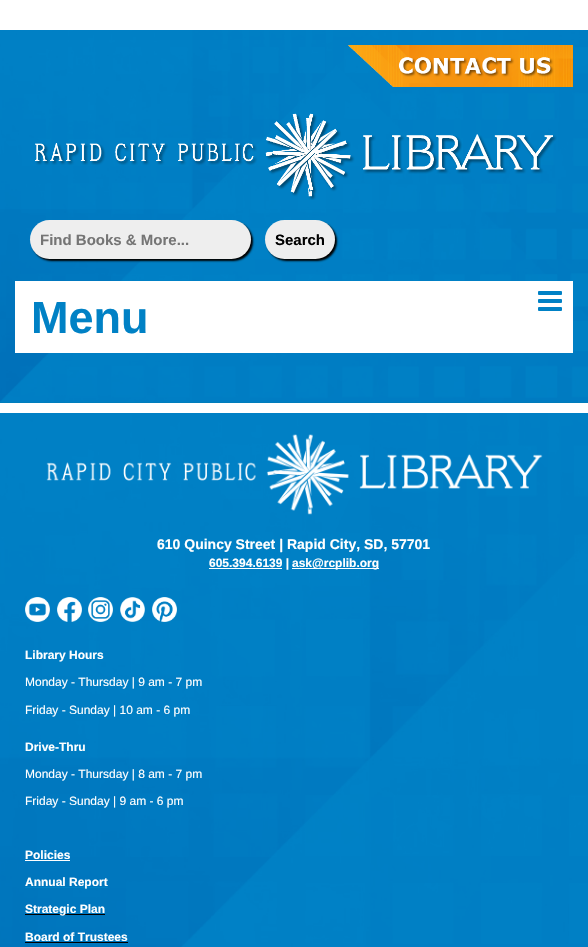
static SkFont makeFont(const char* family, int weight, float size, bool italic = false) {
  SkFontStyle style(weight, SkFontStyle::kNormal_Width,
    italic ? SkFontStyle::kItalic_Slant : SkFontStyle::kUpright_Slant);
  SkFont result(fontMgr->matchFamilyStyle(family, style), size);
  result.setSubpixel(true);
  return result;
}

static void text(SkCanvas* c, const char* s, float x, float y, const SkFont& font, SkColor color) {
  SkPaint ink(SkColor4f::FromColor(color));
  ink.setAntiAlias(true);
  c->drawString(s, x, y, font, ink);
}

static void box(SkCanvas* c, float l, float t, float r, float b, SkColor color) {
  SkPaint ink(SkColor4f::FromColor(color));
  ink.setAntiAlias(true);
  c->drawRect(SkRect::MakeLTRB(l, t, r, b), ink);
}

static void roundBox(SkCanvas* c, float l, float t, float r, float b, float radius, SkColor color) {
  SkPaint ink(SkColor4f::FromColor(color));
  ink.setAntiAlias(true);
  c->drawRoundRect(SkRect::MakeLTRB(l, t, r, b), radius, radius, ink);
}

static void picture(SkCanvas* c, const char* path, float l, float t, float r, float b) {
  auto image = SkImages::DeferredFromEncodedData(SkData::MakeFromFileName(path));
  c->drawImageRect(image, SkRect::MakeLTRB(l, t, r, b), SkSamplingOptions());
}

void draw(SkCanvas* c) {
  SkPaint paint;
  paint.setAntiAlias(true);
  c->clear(0xffffffff);
  picture(c, "img_01.png", 0, 30, 588, 403);
  picture(c, "img_02.png", 348, 45, 573, 87);
  picture(c, "img_03.png", 35, 113, 557, 200);
  paint.setColor(0xff000000);
  paint.setMaskFilter(SkMaskFilter::MakeBlur(kNormal_SkBlurStyle, 1));
  c->drawRoundRect(SkRect::MakeLTRB(32, 222, 253, 261), 19.5f, 19.5f, paint);
  paint.setMaskFilter(nullptr);
  roundBox(c, 30, 220, 251, 259, 19.5f, 0xffeeeeee);
  SkFont face1 = makeFont("Liberation Sans", 700, 15);
  text(c, "Find Books & More...", 40, 245, face1, 0xff757575);
  paint.setMaskFilter(SkMaskFilter::MakeBlur(kNormal_SkBlurStyle, 1));
  c->drawRoundRect(SkRect::MakeLTRB(267, 222, 337, 261), 19.5f, 19.5f, paint);
  paint.setMaskFilter(nullptr);
  roundBox(c, 265, 220, 335, 259, 19.5f, 0xffeeeeee);
  text(c, "Search", 275, 245, face1, 0xff000000);
  box(c, 15, 281, 573, 353, 0xffffffff);
  SkFont face2 = makeFont("Liberation Sans", 700, 45);
  text(c, "Menu", 31, 333, face2, 0xff0081c5);
  picture(c, "img_04.png", 538, 291, 562, 311);
  picture(c, "img_05.png", 0, 413, 588, 947);
  picture(c, "img_06.png", 46, 434, 543, 515);
  SkFont face3 = makeFont("Liberation Sans", 700, 14);
  text(c, "610 Quincy Street | Rapid City, SD, 57701", 157, 549, face3, 0xffffffff);
  box(c, 209, 568, 282, 569, 0xffffffff);
  SkFont face4 = makeFont("Liberation Sans", 700, 12);
  text(c, "605.394.6139 |", 209, 567, face4, 0xffffffff);
  box(c, 292, 568, 379, 569, 0xffffffff);
  text(c, "ask@rcplib.org", 292, 567, face4, 0xffffffff);
  picture(c, "img_07.png", 25, 597, 50, 622);
  picture(c, "img_08.png", 57, 597, 82, 622);
  picture(c, "img_09.png", 88, 597, 113, 622);
  picture(c, "img_10.png", 120, 597, 145, 622);
  picture(c, "img_11.png", 152, 597, 177, 622);
  text(c, "Library Hours", 25, 659, face4, 0xffffffff);
  SkFont face5 = makeFont("Liberation Sans", 400, 12);
  text(c, "Monday - Thursday | 9 am - 7 pm", 25, 686, face5, 0xffffffff);
  text(c, "Friday - Sunday | 10 am - 6 pm", 25, 714, face5, 0xffffffff);
  text(c, "Drive-Thru", 25, 751, face4, 0xffffffff);
  text(c, "Monday - Thursday | 8 am - 7 pm", 25, 778, face5, 0xffffffff);
  text(c, "Friday - Sunday | 9 am - 6 pm", 25, 805, face5, 0xffffffff);
  text(c, "Policies", 25, 859, face4, 0xffffffff);
  box(c, 25, 860, 70, 861, 0xffffffff);
  box(c, 25, 887, 108, 888, 0xff0081c5);
  text(c, "Annual Report", 25, 886, face4, 0xffffffff);
  box(c, 25, 914, 105, 915, 0xff000000);
  text(c, "Strategic Plan", 25, 913, face4, 0xffffffff);
  text(c, "Board of Trustees", 25, 941, face4, 0xffffffff);
  box(c, 25, 942, 128, 943, 0xff000000);
}
